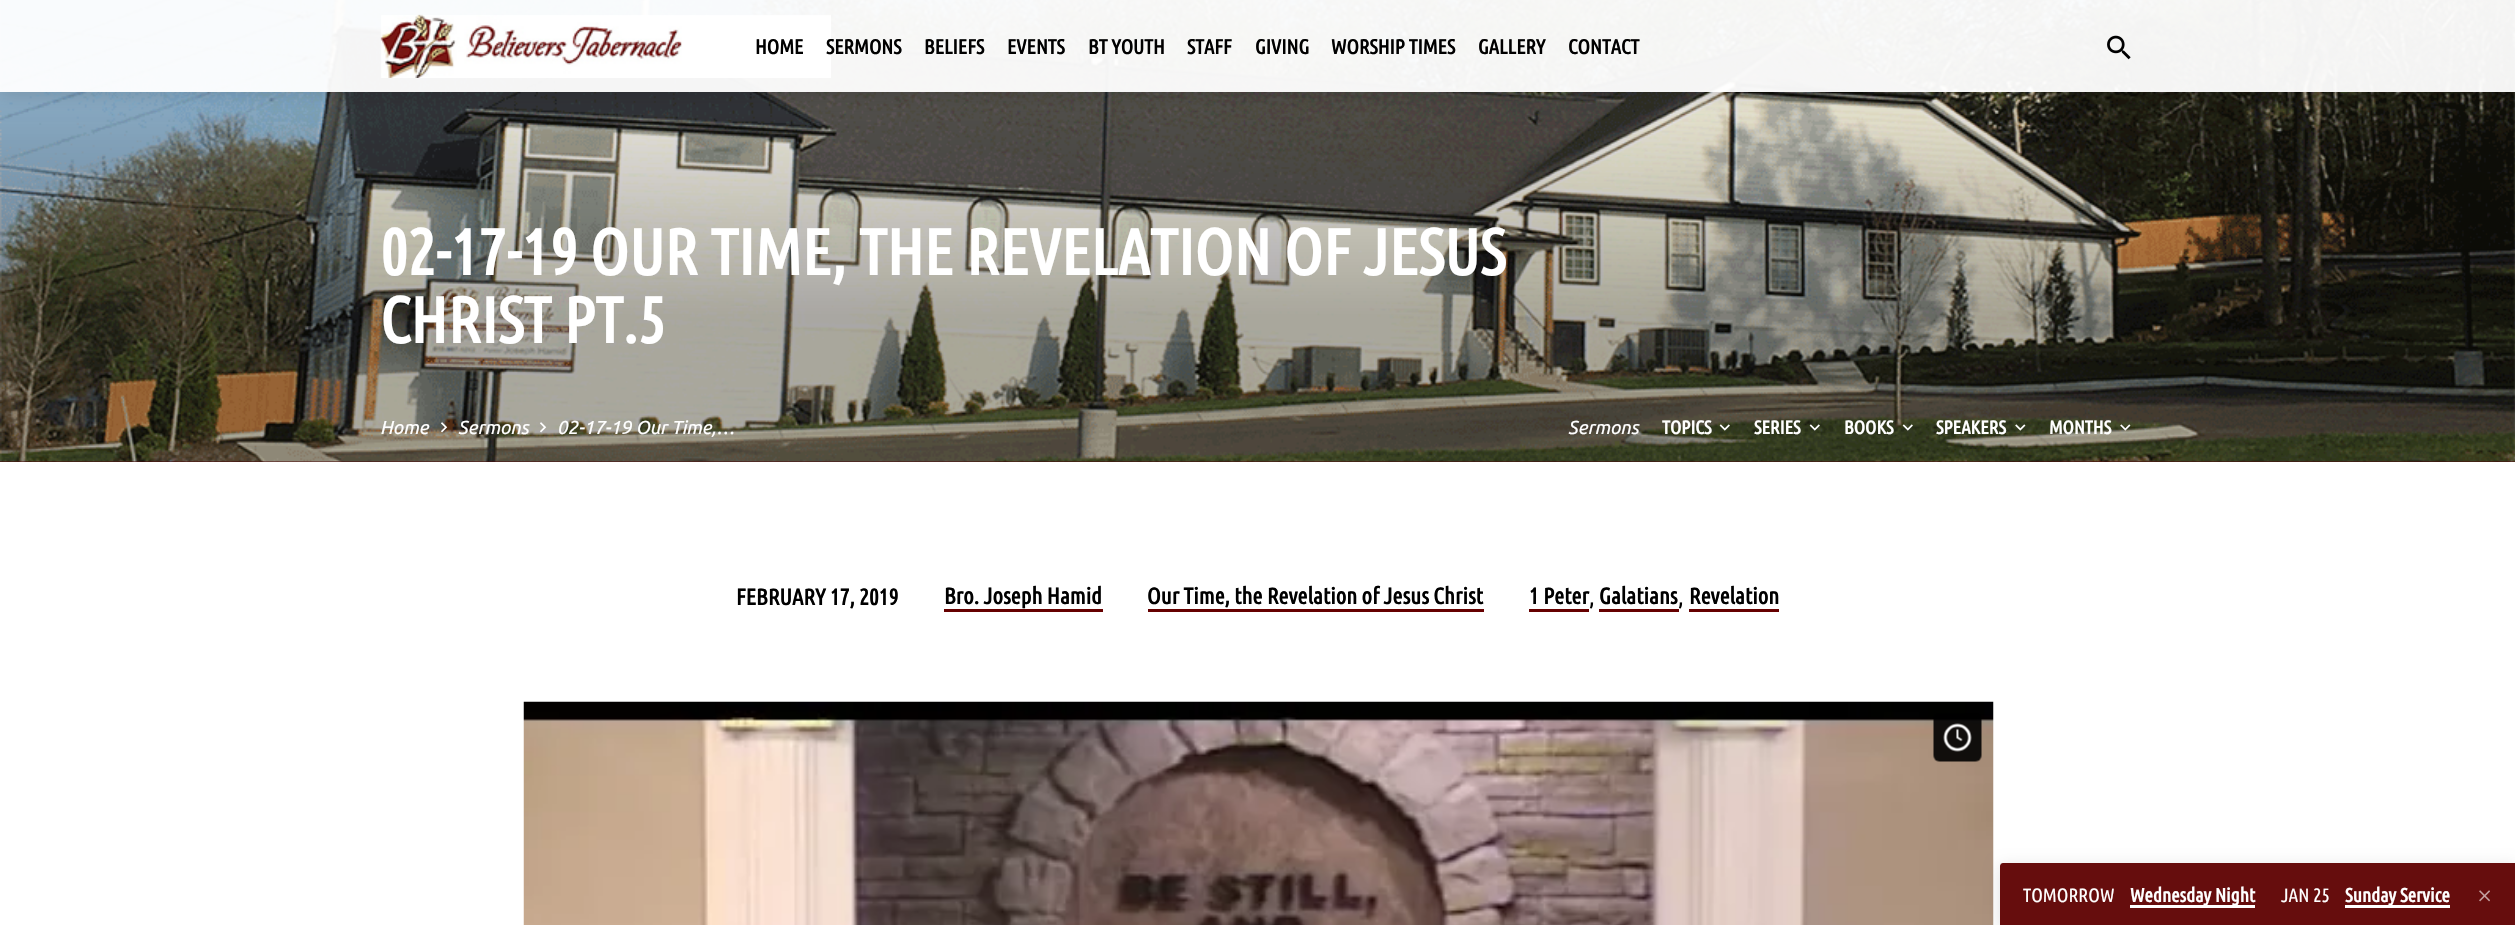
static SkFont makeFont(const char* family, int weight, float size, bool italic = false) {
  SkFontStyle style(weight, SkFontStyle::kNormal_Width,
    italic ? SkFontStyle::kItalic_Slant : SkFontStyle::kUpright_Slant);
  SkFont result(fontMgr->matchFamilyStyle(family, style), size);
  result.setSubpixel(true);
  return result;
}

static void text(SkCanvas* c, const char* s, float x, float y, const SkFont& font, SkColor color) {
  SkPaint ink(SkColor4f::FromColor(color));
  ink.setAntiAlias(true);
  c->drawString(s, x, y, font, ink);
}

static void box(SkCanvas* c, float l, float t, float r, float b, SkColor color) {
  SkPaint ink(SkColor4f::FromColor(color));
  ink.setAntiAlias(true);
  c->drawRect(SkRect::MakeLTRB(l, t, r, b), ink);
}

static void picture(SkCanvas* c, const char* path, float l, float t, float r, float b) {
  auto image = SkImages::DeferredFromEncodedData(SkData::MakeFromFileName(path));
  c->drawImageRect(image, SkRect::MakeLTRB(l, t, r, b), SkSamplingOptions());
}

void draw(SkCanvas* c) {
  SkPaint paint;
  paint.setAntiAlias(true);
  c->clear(0xffffffff);
  box(c, 0, 0, 2515, 462, 0xff690c0c);
  picture(c, "img_03.png", 0, 0, 2515, 462);
  {
    const SkColor colors[] = {0x00000000, 0x00000000, 0x4a000000, 0x4a000000};
    const float stops[] = {0, 0.36f, 0.76f, 1};
    const SkPoint ends[] = {{1258, -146}, {1258, 462}};
    paint.setShader(SkGradientShader::MakeLinear(ends, colors, stops, 4, SkTileMode::kClamp));
    paint.setAlpha(255);
  }
  c->drawRect(SkRect::MakeLTRB(0, 91, 2515, 462), paint);
  box(c, 0, 0, 2515, 92, 0xf2ffffff);
  c->save();
  c->clipPath(SkPathBuilder(SkPathFillType::kEvenOdd).moveTo(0, 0).lineTo(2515, 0).lineTo(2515, 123).lineTo(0, 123).close().moveTo(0, 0).lineTo(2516, 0).lineTo(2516, 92).lineTo(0, 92).close().detach(), true);
  paint.setShader(nullptr);
  paint.setColor(0x24000000);
  paint.setMaskFilter(SkMaskFilter::MakeBlur(kNormal_SkBlurStyle, 9));
  c->drawRect(SkRect::MakeLTRB(0, 3, 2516, 95), paint);
  paint.setMaskFilter(nullptr);
  c->restore();
  picture(c, "img_01.png", 380, 14, 831, 78);
  SkFont face1 = makeFont("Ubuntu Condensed", 700, 20.5f);
  text(c, "HOME", 755, 54, face1, 0xff000000);
  text(c, "SERMONS", 826, 54, face1, 0xff000000);
  text(c, "BELIEFS", 924, 54, face1, 0xff000000);
  text(c, "EVENTS", 1007, 54, face1, 0xff000000);
  text(c, "BT YOUTH", 1088, 54, face1, 0xff000000);
  text(c, "STAFF", 1187, 54, face1, 0xff000000);
  text(c, "GIVING", 1255, 54, face1, 0xff000000);
  text(c, "WORSHIP TIMES", 1331, 54, face1, 0xff000000);
  text(c, "GALLERY", 1478, 54, face1, 0xff000000);
  text(c, "CONTACT", 1568, 54, face1, 0xff000000);
  picture(c, "img_02.png", 2107, 35, 2131, 60);
  SkFont face2 = makeFont("Ubuntu Condensed", 700, 64.75f);
  text(c, "02-17-19 OUR TIME, THE REVELATION OF JESUS", 380, 275, face2, 0xffffffff);
  text(c, "CHRIST PT.5", 380, 343, face2, 0xffffffff);
  SkFont face3 = makeFont("Ubuntu", 400, 18.75f, true);
  text(c, "Home", 380, 434, face3, 0xffffffff);
  picture(c, "img_04.png", 441, 422, 448, 433);
  text(c, "Sermons", 458, 434, face3, 0xffffffff);
  picture(c, "img_05.png", 540, 422, 547, 433);
  text(c, "02-17-19 Our Time,…", 557, 434, face3, 0xffffffff);
  text(c, "Sermons", 1568, 434, face3, 0xffffffff);
  SkFont face4 = makeFont("Ubuntu Condensed", 700, 18.75f);
  text(c, "TOPICS", 1662, 434, face4, 0xffffffff);
  picture(c, "img_06.png", 1719, 424, 1730, 431);
  text(c, "SERIES", 1754, 434, face4, 0xffffffff);
  picture(c, "img_07.png", 1809, 424, 1820, 431);
  text(c, "BOOKS", 1844, 434, face4, 0xffffffff);
  picture(c, "img_08.png", 1902, 424, 1913, 431);
  text(c, "SPEAKERS", 1936, 434, face4, 0xffffffff);
  picture(c, "img_09.png", 2015, 424, 2026, 431);
  text(c, "MONTHS", 2049, 434, face4, 0xffffffff);
  picture(c, "img_10.png", 2120, 424, 2131, 431);
  SkFont face5 = makeFont("Ubuntu Condensed", 700, 22.75f);
  text(c, "FEBRUARY 17, 2019", 736, 605, face5, 0xff000000);
  text(c, "Bro. Joseph Hamid", 944, 604, face5, 0xff000000);
  box(c, 944, 609, 1103, 612, 0xff660000);
  text(c, "Our Time, the Revelation of Jesus Christ", 1147, 604, face5, 0xff000000);
  box(c, 1148, 609, 1484, 612, 0xff660000);
  text(c, "1 Peter", 1529, 604, face5, 0xff000000);
  box(c, 1529, 609, 1589, 612, 0xff660000);
  SkFont face6 = makeFont("Ubuntu", 400, 22.75f);
  text(c, ",", 1589, 605, face6, 0xff000000);
  text(c, "Galatians", 1599, 604, face5, 0xff000000);
  box(c, 1599, 609, 1679, 612, 0xff660000);
  text(c, ",", 1678, 605, face6, 0xff000000);
  text(c, "Revelation", 1689, 604, face5, 0xff000000);
  box(c, 1689, 609, 1779, 612, 0xff660000);
  picture(c, "img_11.png", 523, 701, 1994, 925);
  paint.setColor(0x1f000000);
  paint.setMaskFilter(SkMaskFilter::MakeBlur(kNormal_SkBlurStyle, 7.5f));
  c->drawRoundRect(SkRect::MakeLTRB(2000, 866, 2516, 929), 3, 3, paint);
  paint.setMaskFilter(nullptr);
  paint.setColor(0xff6e0d0d);
  c->drawPath(SkPathBuilder().moveTo(2003, 863).lineTo(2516, 863).lineTo(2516, 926).lineTo(2000, 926).lineTo(2000, 866).cubicTo(2000, 864.5f, 2001.5f, 863, 2003, 863).close().detach(), paint);
  box(c, 2000, 863, 2515, 925, 0x12000000);
  SkFont face7 = makeFont("Ubuntu Condensed", 400, 19.25f);
  text(c, "TOMORROW", 2023, 902, face7, 0xffffffff);
  box(c, 2130, 905, 2255, 908, 0xffffffff);
  SkFont face8 = makeFont("Ubuntu Condensed", 700, 19.25f);
  text(c, "Wednesday Night", 2130, 902, face8, 0xffffffff);
  text(c, "JAN 25", 2281, 902, face7, 0xffffffff);
  box(c, 2345, 905, 2450, 908, 0xffffffff);
  text(c, "Sunday Service", 2345, 902, face8, 0xffffffff);
  picture(c, "img_12.png", 2479, 890, 2490, 902);
}
